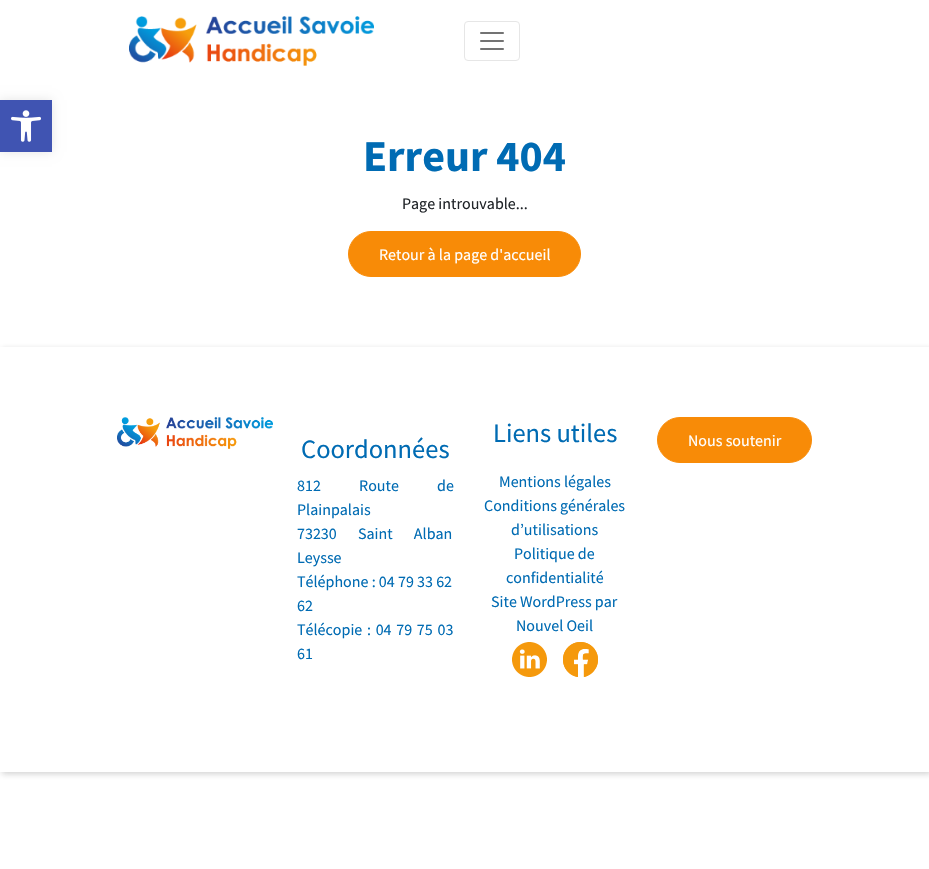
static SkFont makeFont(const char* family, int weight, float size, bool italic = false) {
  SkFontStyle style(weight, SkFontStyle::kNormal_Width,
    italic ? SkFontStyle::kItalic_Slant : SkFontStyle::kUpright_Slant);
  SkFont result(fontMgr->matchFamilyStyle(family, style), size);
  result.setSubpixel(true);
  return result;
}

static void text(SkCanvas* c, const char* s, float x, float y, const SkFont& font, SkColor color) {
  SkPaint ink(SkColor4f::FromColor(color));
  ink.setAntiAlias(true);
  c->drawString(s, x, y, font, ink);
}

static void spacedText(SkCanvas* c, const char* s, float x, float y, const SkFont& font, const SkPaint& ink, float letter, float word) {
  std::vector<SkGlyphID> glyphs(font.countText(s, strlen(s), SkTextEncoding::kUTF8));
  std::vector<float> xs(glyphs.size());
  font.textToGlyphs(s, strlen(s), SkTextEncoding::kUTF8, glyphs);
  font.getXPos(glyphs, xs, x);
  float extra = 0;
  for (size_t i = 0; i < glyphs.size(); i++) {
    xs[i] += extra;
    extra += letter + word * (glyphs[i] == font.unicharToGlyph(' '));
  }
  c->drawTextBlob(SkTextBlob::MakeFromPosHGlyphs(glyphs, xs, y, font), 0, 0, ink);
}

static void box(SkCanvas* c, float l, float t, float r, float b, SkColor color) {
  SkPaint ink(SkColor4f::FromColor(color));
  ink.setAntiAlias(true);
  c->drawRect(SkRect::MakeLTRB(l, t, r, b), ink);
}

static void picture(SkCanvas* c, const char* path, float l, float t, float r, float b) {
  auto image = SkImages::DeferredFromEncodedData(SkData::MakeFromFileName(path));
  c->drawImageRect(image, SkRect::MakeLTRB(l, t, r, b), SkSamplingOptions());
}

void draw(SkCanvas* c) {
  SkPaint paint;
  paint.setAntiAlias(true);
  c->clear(0xffffffff);
  picture(c, "img_01.png", 129, 16, 374, 66);
  paint.setStyle(SkPaint::kStroke_Style);
  paint.setStrokeWidth(1);
  paint.setColor(0xffe6e6e6);
  c->drawRoundRect(SkRect::MakeLTRB(464.5f, 21.5f, 519.5f, 60.5f), 3.5f, 3.5f, paint);
  picture(c, "img_02.png", 480, 32, 504, 50);
  paint.setStyle(SkPaint::kFill_Style);
  paint.setColor(0x1a000000);
  paint.setMaskFilter(SkMaskFilter::MakeBlur(kNormal_SkBlurStyle, 5));
  c->drawRect(SkRect::MakeLTRB(0, 100, 52, 152), paint);
  paint.setMaskFilter(nullptr);
  box(c, 0, 100, 52, 152, 0xff4054b2);
  picture(c, "img_03.png", 11, 110, 41, 142);
  SkFont face1 = makeFont("Source Sans Pro", 700, 44);
  text(c, "Erreur 404", 363, 171, face1, 0xff006bb3);
  SkFont face2 = makeFont("Source Sans Pro", 400, 16);
  text(c, "Page introuvable...", 402, 209, face2, 0xff212529);
  paint.setColor(0xfff88b07);
  c->drawRoundRect(SkRect::MakeLTRB(348.5f, 231.5f, 580.5f, 276.5f), 22.5f, 22.5f, paint);
  paint.setStyle(SkPaint::kStroke_Style);
  c->drawRoundRect(SkRect::MakeLTRB(348.5f, 231.5f, 580.5f, 276.5f), 22.5f, 22.5f, paint);
  text(c, "Retour à la page d'accueil", 379, 260, face2, 0xffffffff);
  c->save();
  c->clipPath(SkPathBuilder(SkPathFillType::kEvenOdd).moveTo(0, 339).lineTo(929, 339).lineTo(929, 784).lineTo(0, 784).close().moveTo(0, 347).lineTo(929, 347).lineTo(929, 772).lineTo(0, 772).close().detach(), true);
  paint.setStyle(SkPaint::kFill_Style);
  paint.setColor(0x331a1a1a);
  paint.setMaskFilter(SkMaskFilter::MakeBlur(kNormal_SkBlurStyle, 3));
  c->drawRect(SkRect::MakeLTRB(2, 349, 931, 774), paint);
  paint.setMaskFilter(nullptr);
  c->restore();
  picture(c, "img_04.png", 117, 417, 273, 449);
  SkFont face3 = makeFont("Source Sans Pro", 400, 26.5f);
  text(c, "Coordonnées", 301, 458, face3, 0xff006bb3);
  paint.setColor(0xff006bb3);
  spacedText(c, "812 Route de", 297, 491, face2, paint, 0, 35);
  text(c, "Plainpalais", 297, 515, face2, 0xff006bb3);
  spacedText(c, "73230 Saint Alban", 297, 539, face2, paint, 0, 18);
  text(c, "Leysse", 297, 563, face2, 0xff006bb3);
  text(c, "Téléphone : 04 79 33 62", 297, 587, face2, 0xff006bb3);
  text(c, "62", 297, 611, face2, 0xff006bb3);
  spacedText(c, "Télécopie : 04 79 75 03", 297, 635, face2, paint, 0, 1.5f);
  text(c, "61", 297, 659, face2, 0xff006bb3);
  text(c, "Liens utiles", 493, 442, face3, 0xff006bb3);
  text(c, "Mentions légales", 499, 487, face2, 0xff006bb3);
  text(c, "Conditions générales", 484, 511, face2, 0xff006bb3);
  text(c, "d’utilisations", 511, 535, face2, 0xff006bb3);
  text(c, "Politique de", 514, 559, face2, 0xff006bb3);
  text(c, "confidentialité", 506, 583, face2, 0xff006bb3);
  text(c, "Site WordPress par", 491, 607, face2, 0xff006bb3);
  text(c, "Nouvel Oeil", 516, 631, face2, 0xff006bb3);
  picture(c, "img_05.png", 512, 642, 547, 677);
  picture(c, "img_06.png", 563, 642, 598, 677);
  paint.setColor(0xfff88b07);
  c->drawRoundRect(SkRect::MakeLTRB(657.5f, 417.5f, 811.5f, 462.5f), 22.5f, 22.5f, paint);
  paint.setStyle(SkPaint::kStroke_Style);
  c->drawRoundRect(SkRect::MakeLTRB(657.5f, 417.5f, 811.5f, 462.5f), 22.5f, 22.5f, paint);
  text(c, "Nous soutenir", 688, 446, face2, 0xffffffff);
}
